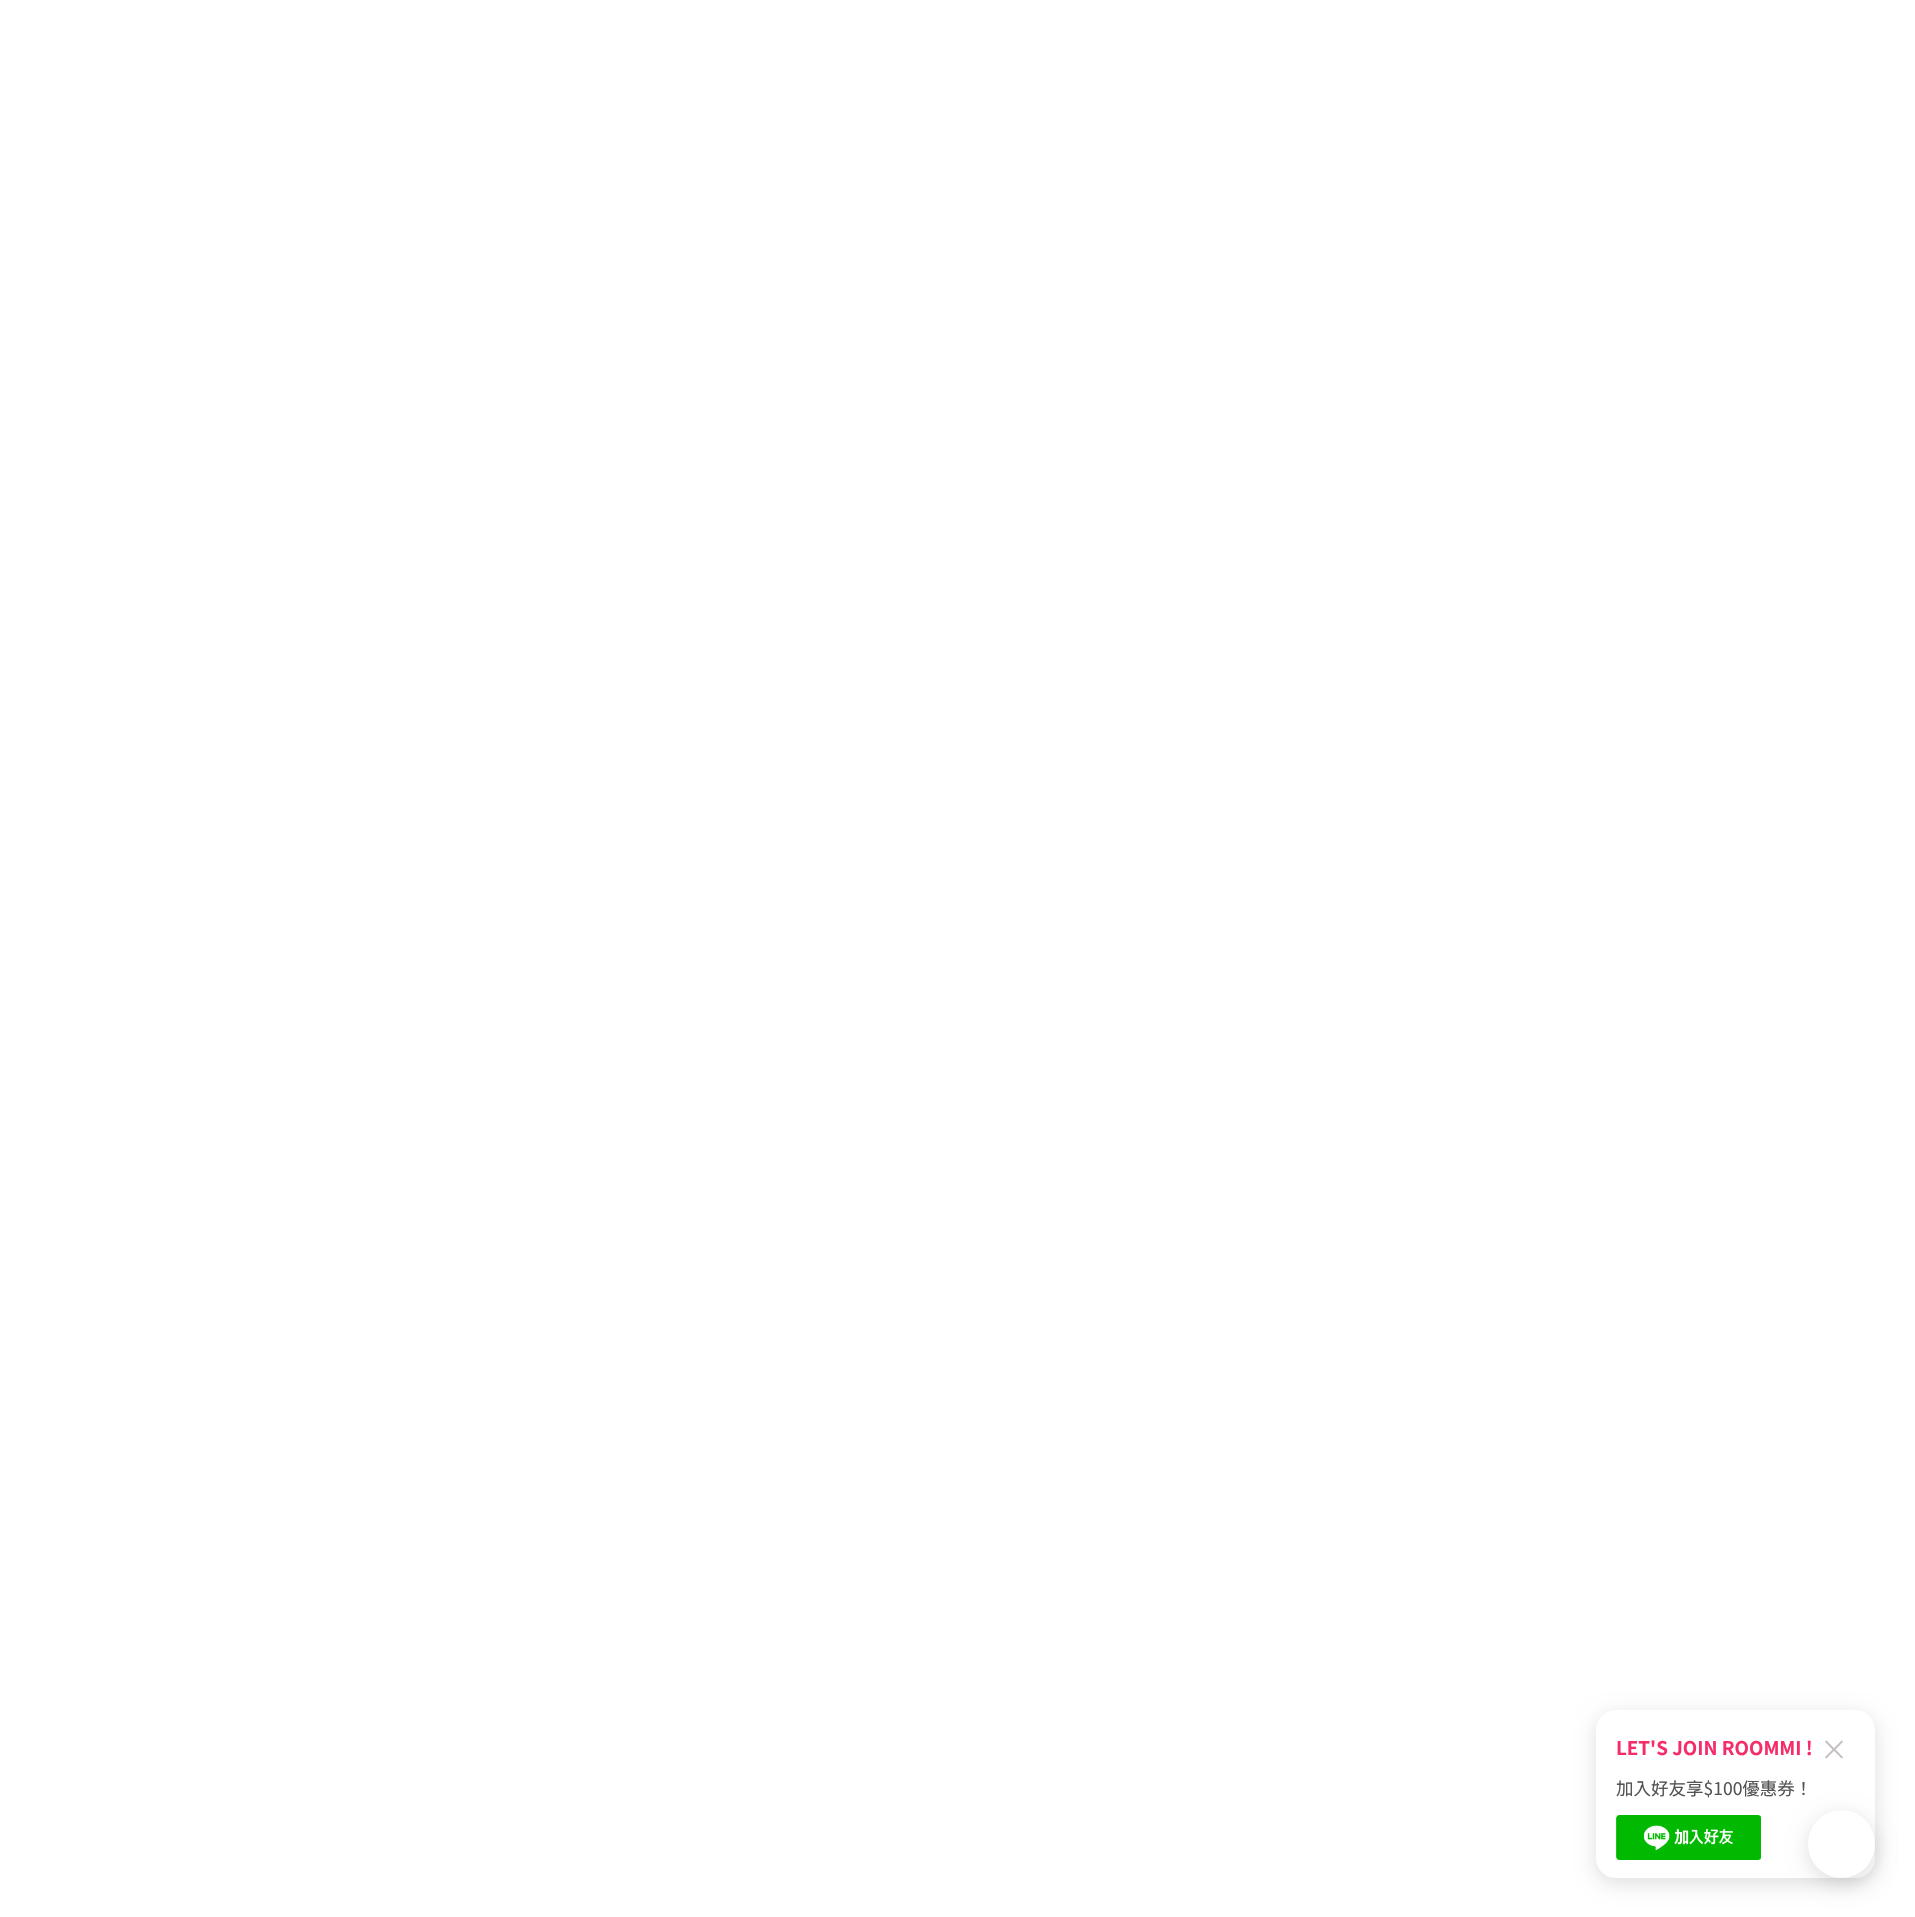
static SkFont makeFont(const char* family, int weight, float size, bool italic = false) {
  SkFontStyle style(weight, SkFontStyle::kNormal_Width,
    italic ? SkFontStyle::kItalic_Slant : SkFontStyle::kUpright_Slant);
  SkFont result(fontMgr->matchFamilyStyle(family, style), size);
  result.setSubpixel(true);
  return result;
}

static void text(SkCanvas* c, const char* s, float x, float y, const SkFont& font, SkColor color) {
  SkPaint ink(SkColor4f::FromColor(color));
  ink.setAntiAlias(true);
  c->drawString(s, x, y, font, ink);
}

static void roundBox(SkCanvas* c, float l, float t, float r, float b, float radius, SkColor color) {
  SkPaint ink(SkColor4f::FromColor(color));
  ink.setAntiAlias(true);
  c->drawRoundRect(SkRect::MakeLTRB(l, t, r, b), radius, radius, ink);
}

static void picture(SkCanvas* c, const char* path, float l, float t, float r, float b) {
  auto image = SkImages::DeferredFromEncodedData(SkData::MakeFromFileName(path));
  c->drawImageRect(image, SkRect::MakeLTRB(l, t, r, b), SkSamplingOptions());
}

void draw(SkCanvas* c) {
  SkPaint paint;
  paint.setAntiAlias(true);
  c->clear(0xffffffff);
  paint.setColor(0x21000000);
  paint.setMaskFilter(SkMaskFilter::MakeBlur(kNormal_SkBlurStyle, 10));
  c->drawRoundRect(SkRect::MakeLTRB(1596, 1715, 1875, 1883), 20, 20, paint);
  paint.setMaskFilter(nullptr);
  roundBox(c, 1596, 1710, 1875, 1878, 20, 0xffffffff);
  SkFont face1 = makeFont("Noto Sans TC", 700, 18.75f);
  text(c, "LET'S JOIN ROOMMI !", 1616, 1755, face1, 0xfff52c6a);
  SkFont face2 = makeFont("Noto Sans TC", 400, 28);
  text(c, "×", 1820, 1760, face2, 0xffc5bebe);
  SkFont face3 = makeFont("Noto Sans TC", 400, 17.5f);
  text(c, "加入好友享$100優惠券！", 1616, 1795, face3, 0xff535353);
  picture(c, "img_01.png", 1616, 1815, 1761, 1860);
  paint.setMaskFilter(SkMaskFilter::MakeBlur(kNormal_SkBlurStyle, 10));
  c->drawRoundRect(SkRect::MakeLTRB(1808, 1815, 1875, 1883), 33.5f, 33.5f, paint);
  paint.setMaskFilter(nullptr);
  roundBox(c, 1808, 1810, 1875, 1878, 33.5f, 0xffffffff);
}
